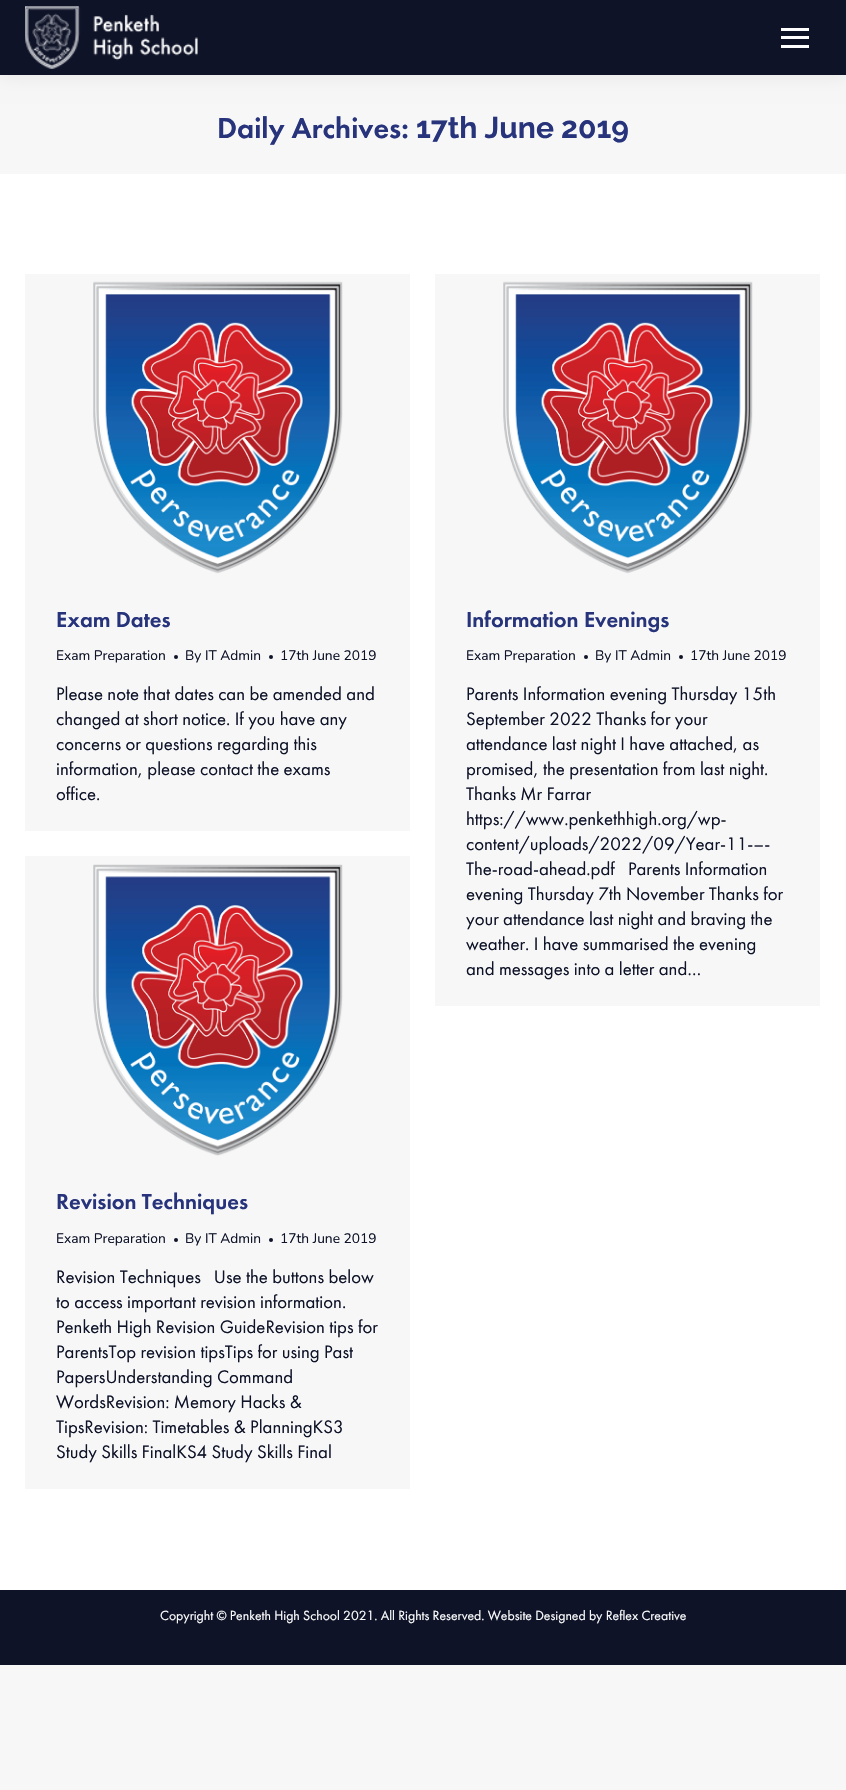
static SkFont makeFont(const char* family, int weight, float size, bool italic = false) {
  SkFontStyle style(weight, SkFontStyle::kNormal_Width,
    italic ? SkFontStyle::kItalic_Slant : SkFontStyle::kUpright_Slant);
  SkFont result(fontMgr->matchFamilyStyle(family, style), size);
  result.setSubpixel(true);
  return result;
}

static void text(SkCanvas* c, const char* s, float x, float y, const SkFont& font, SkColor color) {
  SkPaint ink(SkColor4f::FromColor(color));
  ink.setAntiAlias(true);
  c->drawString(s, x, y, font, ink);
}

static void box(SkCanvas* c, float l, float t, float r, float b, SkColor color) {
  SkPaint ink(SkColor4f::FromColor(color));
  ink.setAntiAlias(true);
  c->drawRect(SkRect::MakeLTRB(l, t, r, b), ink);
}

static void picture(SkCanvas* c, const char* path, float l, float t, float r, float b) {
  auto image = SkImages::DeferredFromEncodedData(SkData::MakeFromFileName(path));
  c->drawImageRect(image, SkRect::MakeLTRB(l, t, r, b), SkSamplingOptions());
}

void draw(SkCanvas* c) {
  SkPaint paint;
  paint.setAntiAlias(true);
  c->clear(0xfff7f7f7);
  box(c, 0, 174, 846, 1590, 0xffffffff);
  paint.setColor(0x12000000);
  paint.setMaskFilter(SkMaskFilter::MakeBlur(kNormal_SkBlurStyle, 9.5f));
  c->drawRect(SkRect::MakeLTRB(-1, -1, 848, 76), paint);
  paint.setMaskFilter(nullptr);
  box(c, 0, 0, 846, 75, 0xff0e1328);
  picture(c, "img_01.png", 25, 6, 198, 69);
  box(c, 781, 28, 809, 31, 0xffffffff);
  box(c, 781, 36, 809, 39, 0xffffffff);
  box(c, 781, 45, 809, 48, 0xffffffff);
  SkFont face1 = makeFont("Futura PT", 500, 30);
  text(c, "Daily Archives:", 217, 138, face1, 0xff27347c);
  SkFont face2 = makeFont("Raleway", 700, 30);
  text(c, "17th June 2019", 416, 138, face2, 0xff27347c);
  box(c, 25, 274, 410, 831, 0xfff7f7f7);
  picture(c, "img_02.png", 93, 281, 343, 574);
  SkFont face3 = makeFont("Futura PT", 500, 22.5f);
  text(c, "Exam Dates", 56, 627, face3, 0xff27347c);
  SkFont face4 = makeFont("Nunito", 400, 13.75f);
  text(c, "Exam Preparation", 56, 660, face4, 0xff0e1328);
  paint.setColor(0xff0e1328);
  c->drawCircle(176, 657, 2, paint);
  text(c, "By IT Admin", 185, 660, face4, 0xff0e1328);
  c->drawCircle(271, 657, 2, paint);
  text(c, "17th June 2019", 280, 660, face4, 0xff0e1328);
  SkFont face5 = makeFont("Futura PT", 400, 18.75f);
  text(c, "Please note that dates can be amended and", 56, 700, face5, 0xff0e1328);
  text(c, "changed at short notice. If you have any", 56, 725, face5, 0xff0e1328);
  text(c, "concerns or questions regarding this", 56, 750, face5, 0xff0e1328);
  text(c, "information, please contact the exams", 56, 775, face5, 0xff0e1328);
  text(c, "office.", 56, 800, face5, 0xff0e1328);
  box(c, 435, 274, 820, 1006, 0xfff7f7f7);
  picture(c, "img_02.png", 503, 281, 753, 574);
  text(c, "Information Evenings", 466, 627, face3, 0xff27347c);
  text(c, "Exam Preparation", 466, 660, face4, 0xff0e1328);
  c->drawCircle(586, 657, 2, paint);
  text(c, "By IT Admin", 595, 660, face4, 0xff0e1328);
  c->drawCircle(681, 657, 2, paint);
  text(c, "17th June 2019", 690, 660, face4, 0xff0e1328);
  text(c, "Parents Information evening Thursday 15th", 466, 700, face5, 0xff0e1328);
  text(c, "September 2022 Thanks for your", 466, 725, face5, 0xff0e1328);
  text(c, "attendance last night I have attached, as", 466, 750, face5, 0xff0e1328);
  text(c, "promised, the presentation from last night.", 466, 775, face5, 0xff0e1328);
  text(c, "Thanks Mr Farrar", 466, 800, face5, 0xff0e1328);
  text(c, "https://www.penkethhigh.org/wp-", 466, 825, face5, 0xff0e1328);
  text(c, "content/uploads/2022/09/Year-11-–-", 466, 850, face5, 0xff0e1328);
  text(c, "The-road-ahead.pdf   Parents Information", 466, 875, face5, 0xff0e1328);
  text(c, "evening Thursday 7th November Thanks for", 466, 900, face5, 0xff0e1328);
  text(c, "your attendance last night and braving the", 466, 925, face5, 0xff0e1328);
  text(c, "weather. I have summarised the evening", 466, 950, face5, 0xff0e1328);
  text(c, "and messages into a letter and…", 466, 975, face5, 0xff0e1328);
  box(c, 25, 856, 410, 1489, 0xfff7f7f7);
  picture(c, "img_03.png", 93, 864, 343, 1156);
  text(c, "Revision Techniques", 56, 1209, face3, 0xff27347c);
  text(c, "Exam Preparation", 56, 1243, face4, 0xff0e1328);
  c->drawCircle(176, 1240, 2, paint);
  text(c, "By IT Admin", 185, 1243, face4, 0xff0e1328);
  c->drawCircle(271, 1240, 2, paint);
  text(c, "17th June 2019", 280, 1243, face4, 0xff0e1328);
  text(c, "Revision Techniques   Use the buttons below", 56, 1283, face5, 0xff0e1328);
  text(c, "to access important revision information.", 56, 1308, face5, 0xff0e1328);
  text(c, "Penketh High Revision GuideRevision tips for", 56, 1333, face5, 0xff0e1328);
  text(c, "ParentsTop revision tipsTips for using Past", 56, 1358, face5, 0xff0e1328);
  text(c, "PapersUnderstanding Command", 56, 1383, face5, 0xff0e1328);
  text(c, "WordsRevision: Memory Hacks &", 56, 1408, face5, 0xff0e1328);
  text(c, "TipsRevision: Timetables & PlanningKS3", 56, 1433, face5, 0xff0e1328);
  text(c, "Study Skills FinalKS4 Study Skills Final", 56, 1458, face5, 0xff0e1328);
  box(c, 0, 1590, 846, 1665, 0xff0e1328);
  SkFont face6 = makeFont("Futura PT", 400, 13.75f);
  text(c, "Copyright © Penketh High School 2021. All Rights Reserved. Website Designed by Reflex Creative", 160, 1620, face6, 0xffffffff);
}
